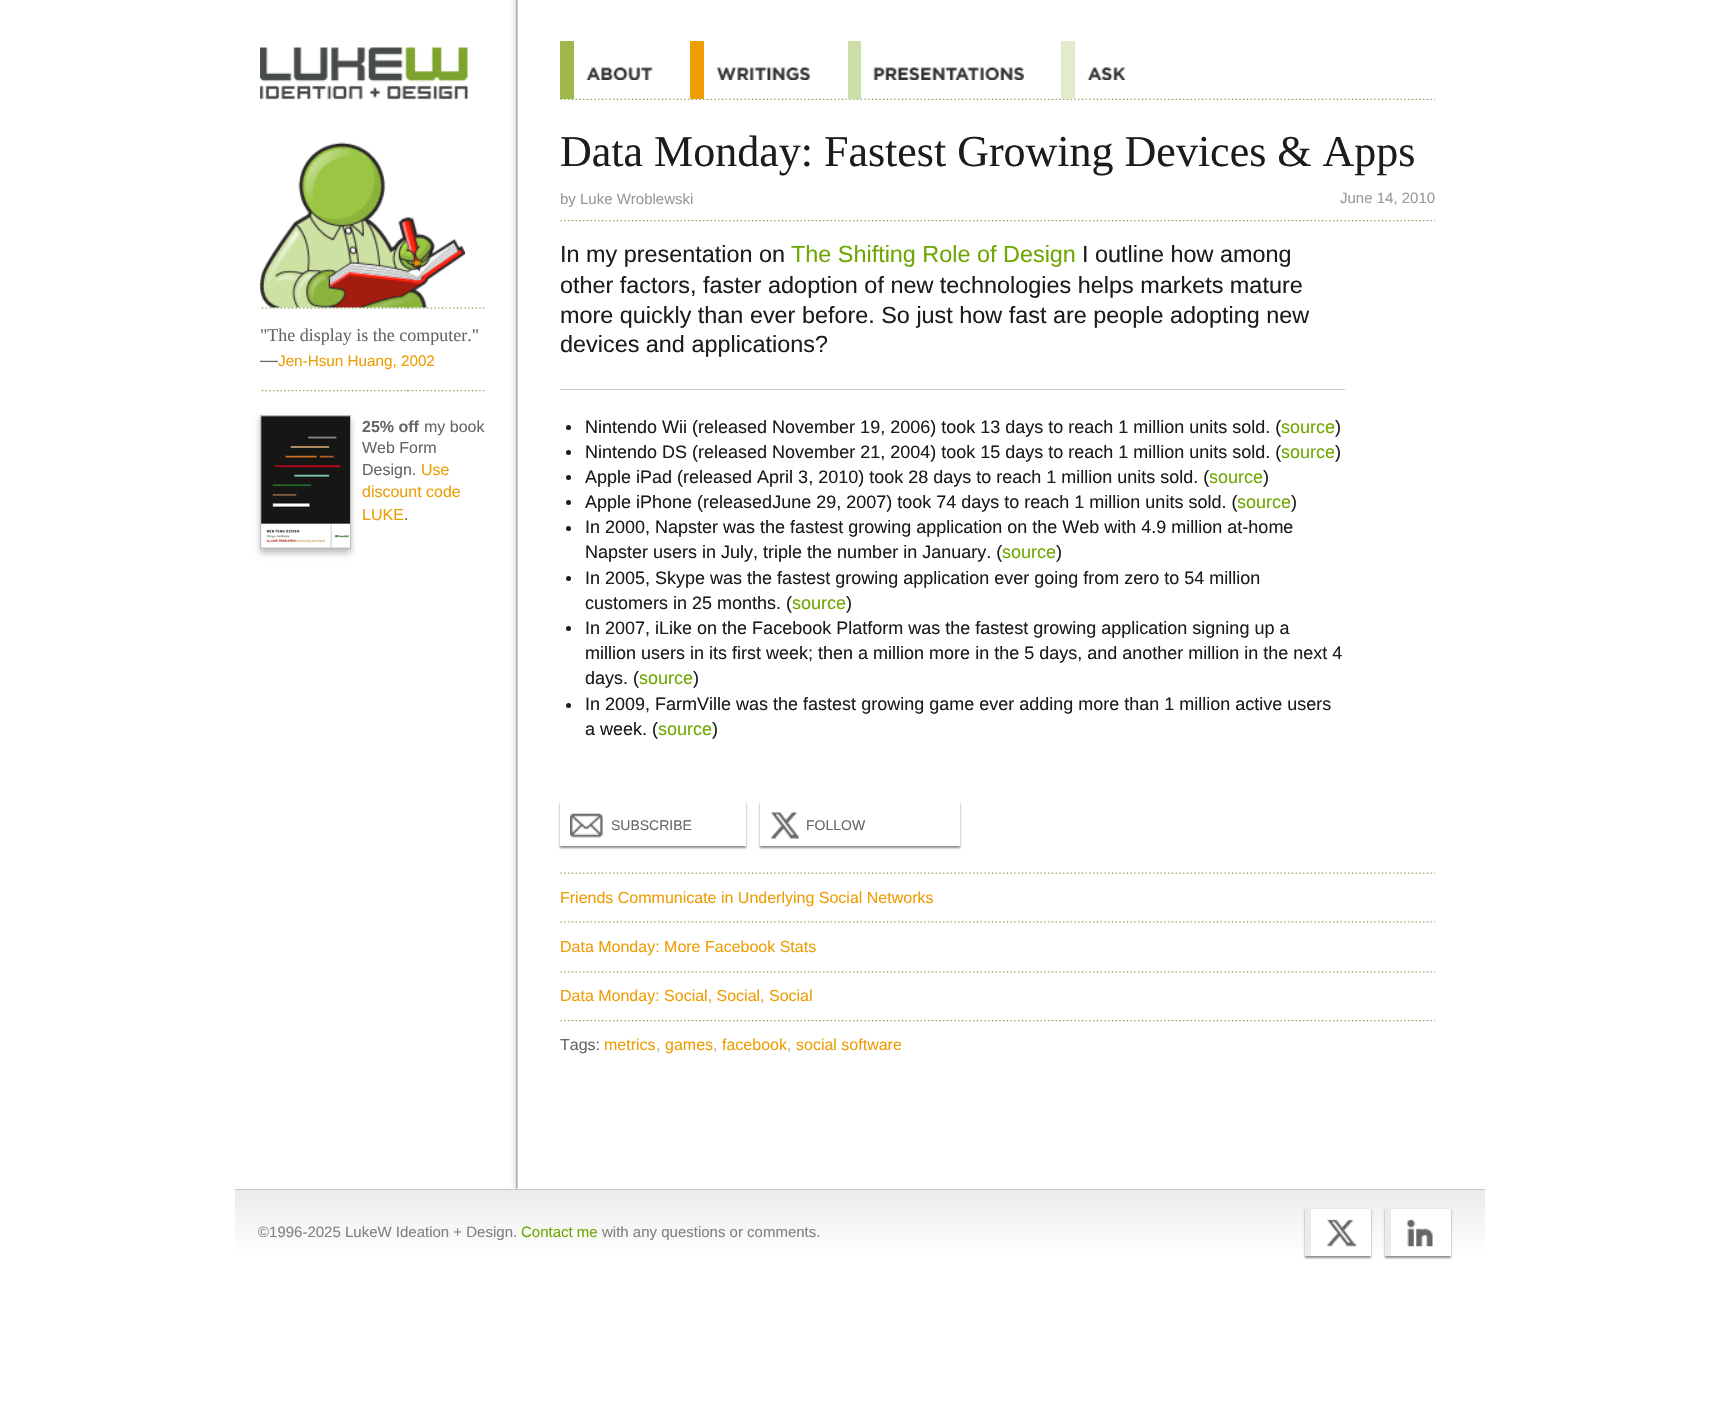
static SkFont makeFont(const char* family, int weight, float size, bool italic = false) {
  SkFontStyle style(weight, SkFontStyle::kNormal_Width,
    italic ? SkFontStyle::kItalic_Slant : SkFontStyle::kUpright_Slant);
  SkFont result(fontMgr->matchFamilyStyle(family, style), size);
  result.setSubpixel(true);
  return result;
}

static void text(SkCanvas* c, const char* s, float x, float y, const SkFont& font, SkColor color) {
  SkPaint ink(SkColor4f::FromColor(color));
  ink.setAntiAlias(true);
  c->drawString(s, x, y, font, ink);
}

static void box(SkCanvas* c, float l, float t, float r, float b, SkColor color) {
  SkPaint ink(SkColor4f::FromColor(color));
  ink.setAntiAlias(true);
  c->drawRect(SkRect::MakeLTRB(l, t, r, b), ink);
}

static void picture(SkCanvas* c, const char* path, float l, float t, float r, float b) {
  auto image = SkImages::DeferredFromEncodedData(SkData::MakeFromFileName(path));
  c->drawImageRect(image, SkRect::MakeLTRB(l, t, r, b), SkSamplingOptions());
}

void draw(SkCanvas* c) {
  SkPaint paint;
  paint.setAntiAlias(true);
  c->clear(0xffffffff);
  picture(c, "img_01.png", 560, 98, 1435, 100);
  box(c, 560, 41, 574, 99, 0xff9fb84c);
  picture(c, "img_02.png", 586, 67, 653, 80);
  box(c, 690, 41, 704, 99, 0xffee9d05);
  picture(c, "img_03.png", 716, 67, 810, 80);
  box(c, 848, 41, 861, 99, 0xffcddfa9);
  picture(c, "img_04.png", 873, 67, 1024, 80);
  box(c, 1061, 41, 1075, 99, 0xffe3ebce);
  picture(c, "img_05.png", 1087, 67, 1125, 80);
  picture(c, "img_06.png", 260, 47, 468, 100);
  picture(c, "img_07.png", 260, 142, 465, 308);
  picture(c, "img_08.png", 261, 307, 485, 309);
  SkFont face1 = makeFont("Liberation Serif", 400, 18);
  text(c, "\"The display is the computer.\"", 260, 341, face1, 0xff666666);
  SkFont face2 = makeFont("Liberation Sans", 400, 18);
  text(c, "—", 260, 366, face2, 0xff666666);
  SkFont face3 = makeFont("Liberation Sans", 400, 15.25f);
  text(c, "Jen-Hsun Huang, 2002", 278, 366, face3, 0xffee9d05);
  picture(c, "img_09.png", 261, 390, 485, 392);
  paint.setColor(0xffbfbbbb);
  paint.setMaskFilter(SkMaskFilter::MakeBlur(kNormal_SkBlurStyle, 3));
  c->drawRect(SkRect::MakeLTRB(260, 419, 351, 553), paint);
  paint.setMaskFilter(nullptr);
  paint.setStyle(SkPaint::kStroke_Style);
  paint.setStrokeWidth(1);
  paint.setColor(0xffbebcbc);
  c->drawRect(SkRect::MakeLTRB(260.5f, 415.5f, 350.5f, 548.5f), paint);
  picture(c, "img_10.png", 261, 416, 350, 548);
  SkFont face4 = makeFont("Liberation Sans", 700, 16);
  text(c, "25% off", 362, 432, face4, 0xff666666);
  SkFont face5 = makeFont("Liberation Sans", 400, 16);
  text(c, "my book", 424, 432, face5, 0xff666666);
  text(c, "Web Form", 362, 453, face5, 0xff666666);
  text(c, "Design.", 362, 475, face5, 0xff666666);
  text(c, "Use", 421, 475, face5, 0xffee9d05);
  text(c, "discount code", 362, 497, face5, 0xffee9d05);
  text(c, "LUKE", 362, 520, face5, 0xffee9d05);
  text(c, ".", 404, 520, face5, 0xff666666);
  picture(c, "img_11.png", 511, 0, 518, 1189);
  SkFont face6 = makeFont("Liberation Serif", 400, 44);
  text(c, "Data Monday: Fastest Growing Devices & Apps", 560, 166, face6, 0xff1c1c1c);
  picture(c, "img_12.png", 560, 220, 1435, 222);
  SkFont face7 = makeFont("Liberation Sans", 400, 15);
  text(c, "by Luke Wroblewski", 560, 204, face7, 0xff999999);
  text(c, "June 14, 2010", 1340, 203, face7, 0xff999999);
  box(c, 560, 389, 1345, 390, 0xffc9c9c9);
  SkFont face8 = makeFont("Liberation Sans", 400, 23.4f);
  text(c, "In my presentation on", 560, 262, face8, 0xff1c1c1c);
  text(c, "The Shifting Role of Design", 791, 262, face8, 0xff6fa601);
  text(c, "I outline how among", 1082, 262, face8, 0xff1c1c1c);
  text(c, "other factors, faster adoption of new technologies helps markets mature", 560, 293, face8, 0xff1c1c1c);
  text(c, "more quickly than ever before. So just how fast are people adopting new", 560, 323, face8, 0xff1c1c1c);
  text(c, "devices and applications?", 560, 352, face8, 0xff1c1c1c);
  paint.setStyle(SkPaint::kFill_Style);
  paint.setColor(0xff1c1c1c);
  c->drawCircle(568.5f, 427.5f, 2.5f, paint);
  text(c, "Nintendo Wii (released November 19, 2006) took 13 days to reach 1 million units sold. (", 585, 433, face2, 0xff1c1c1c);
  text(c, "source", 1281, 433, face2, 0xff6fa601);
  text(c, ")", 1335, 433, face2, 0xff1c1c1c);
  c->drawCircle(568.5f, 452.5f, 2.5f, paint);
  text(c, "Nintendo DS (released November 21, 2004) took 15 days to reach 1 million units sold. (", 585, 458, face2, 0xff1c1c1c);
  text(c, "source", 1281, 458, face2, 0xff6fa601);
  text(c, ")", 1335, 458, face2, 0xff1c1c1c);
  c->drawCircle(568.5f, 477.5f, 2.5f, paint);
  text(c, "Apple iPad (released April 3, 2010) took 28 days to reach 1 million units sold. (", 585, 483, face2, 0xff1c1c1c);
  text(c, "source", 1209, 483, face2, 0xff6fa601);
  text(c, ")", 1263, 483, face2, 0xff1c1c1c);
  c->drawCircle(568.5f, 502.5f, 2.5f, paint);
  text(c, "Apple iPhone (releasedJune 29, 2007) took 74 days to reach 1 million units sold. (", 585, 508, face2, 0xff1c1c1c);
  text(c, "source", 1237, 508, face2, 0xff6fa601);
  text(c, ")", 1291, 508, face2, 0xff1c1c1c);
  c->drawCircle(568.5f, 528.5f, 2.5f, paint);
  text(c, "In 2000, Napster was the fastest growing application on the Web with 4.9 million at-home", 585, 533, face2, 0xff1c1c1c);
  text(c, "Napster users in July, triple the number in January. (", 585, 558, face2, 0xff1c1c1c);
  text(c, "source", 1002, 558, face2, 0xff6fa601);
  text(c, ")", 1056, 558, face2, 0xff1c1c1c);
  c->drawCircle(568.5f, 578.5f, 2.5f, paint);
  text(c, "In 2005, Skype was the fastest growing application ever going from zero to 54 million", 585, 584, face2, 0xff1c1c1c);
  text(c, "customers in 25 months. (", 585, 609, face2, 0xff1c1c1c);
  text(c, "source", 792, 609, face2, 0xff6fa601);
  text(c, ")", 846, 609, face2, 0xff1c1c1c);
  c->drawCircle(568.5f, 628.5f, 2.5f, paint);
  text(c, "In 2007, iLike on the Facebook Platform was the fastest growing application signing up a", 585, 634, face2, 0xff1c1c1c);
  text(c, "million users in its first week; then a million more in the 5 days, and another million in the next 4", 585, 659, face2, 0xff1c1c1c);
  text(c, "days. (", 585, 684, face2, 0xff1c1c1c);
  text(c, "source", 639, 684, face2, 0xff6fa601);
  text(c, ")", 693, 684, face2, 0xff1c1c1c);
  c->drawCircle(568.5f, 705.5f, 2.5f, paint);
  text(c, "In 2009, FarmVille was the fastest growing game ever adding more than 1 million active users", 585, 710, face2, 0xff1c1c1c);
  text(c, "a week. (", 585, 735, face2, 0xff1c1c1c);
  text(c, "source", 658, 735, face2, 0xff6fa601);
  text(c, ")", 712, 735, face2, 0xff1c1c1c);
  paint.setColor(0xff8d8d8d);
  paint.setMaskFilter(SkMaskFilter::MakeBlur(kNormal_SkBlurStyle, 1));
  c->drawRect(SkRect::MakeLTRB(560, 803, 746, 848), paint);
  paint.setMaskFilter(nullptr);
  box(c, 560, 801, 746, 846, 0xffffffff);
  picture(c, "img_13.png", 570, 813, 603, 838);
  SkFont face9 = makeFont("Liberation Sans", 400, 14);
  text(c, "SUBSCRIBE", 611, 830, face9, 0xff666666);
  paint.setMaskFilter(SkMaskFilter::MakeBlur(kNormal_SkBlurStyle, 1));
  c->drawRect(SkRect::MakeLTRB(760, 803, 960, 848), paint);
  paint.setMaskFilter(nullptr);
  box(c, 760, 801, 960, 846, 0xffffffff);
  picture(c, "img_14.png", 771, 812, 799, 839);
  text(c, "FOLLOW", 806, 830, face9, 0xff666666);
  picture(c, "img_15.png", 560, 872, 1435, 874);
  text(c, "Friends Communicate in Underlying Social Networks", 560, 903, face5, 0xffee9d05);
  picture(c, "img_16.png", 560, 921, 1435, 923);
  text(c, "Data Monday: More Facebook Stats", 560, 952, face5, 0xffee9d05);
  picture(c, "img_16.png", 560, 971, 1435, 973);
  text(c, "Data Monday: Social, Social, Social", 560, 1001, face5, 0xffee9d05);
  picture(c, "img_12.png", 560, 1020, 1435, 1022);
  text(c, "Tags:", 560, 1050, face5, 0xff666666);
  text(c, "metrics", 604, 1050, face5, 0xffee9d05);
  text(c, ",", 656, 1050, face5, 0xffb5b5b5);
  text(c, "games", 665, 1050, face5, 0xffee9d05);
  text(c, ",", 713, 1050, face5, 0xffb5b5b5);
  text(c, "facebook", 722, 1050, face5, 0xffee9d05);
  text(c, ",", 787, 1050, face5, 0xffb5b5b5);
  text(c, "social software", 796, 1050, face5, 0xffee9d05);
  {
    const SkColor colors[] = {0xffebecea, 0xffffffff};
    const float stops[] = {0, 0.8f};
    const SkPoint ends[] = {{860, 1190}, {860, 1275}};
    paint.setShader(SkGradientShader::MakeLinear(ends, colors, stops, 2, SkTileMode::kClamp));
    paint.setAlpha(255);
  }
  c->drawRect(SkRect::MakeLTRB(235, 1190, 1485, 1250), paint);
  box(c, 235, 1189, 1485, 1190, 0xffc9c9c9);
  text(c, "©1996-2025 LukeW Ideation + Design.", 258, 1237, face7, 0xff808180);
  text(c, "Contact me", 521, 1237, face7, 0xff6fa601);
  text(c, "with any questions or comments.", 602, 1237, face7, 0xff808180);
  paint.setShader(nullptr);
  paint.setColor(0xff8d8d8d);
  paint.setMaskFilter(SkMaskFilter::MakeBlur(kNormal_SkBlurStyle, 1));
  c->drawRect(SkRect::MakeLTRB(1305, 1210, 1371, 1258), paint);
  paint.setMaskFilter(nullptr);
  box(c, 1311, 1209, 1371, 1256, 0xffffffff);
  box(c, 1305, 1209, 1311, 1256, 0xffecedeb);
  picture(c, "img_17.png", 1327, 1219, 1357, 1247);
  paint.setMaskFilter(SkMaskFilter::MakeBlur(kNormal_SkBlurStyle, 1));
  c->drawRect(SkRect::MakeLTRB(1385, 1210, 1451, 1258), paint);
  paint.setMaskFilter(nullptr);
  box(c, 1391, 1209, 1451, 1256, 0xffffffff);
  box(c, 1385, 1209, 1391, 1256, 0xffecedeb);
  picture(c, "img_18.png", 1407, 1219, 1433, 1247);
}
